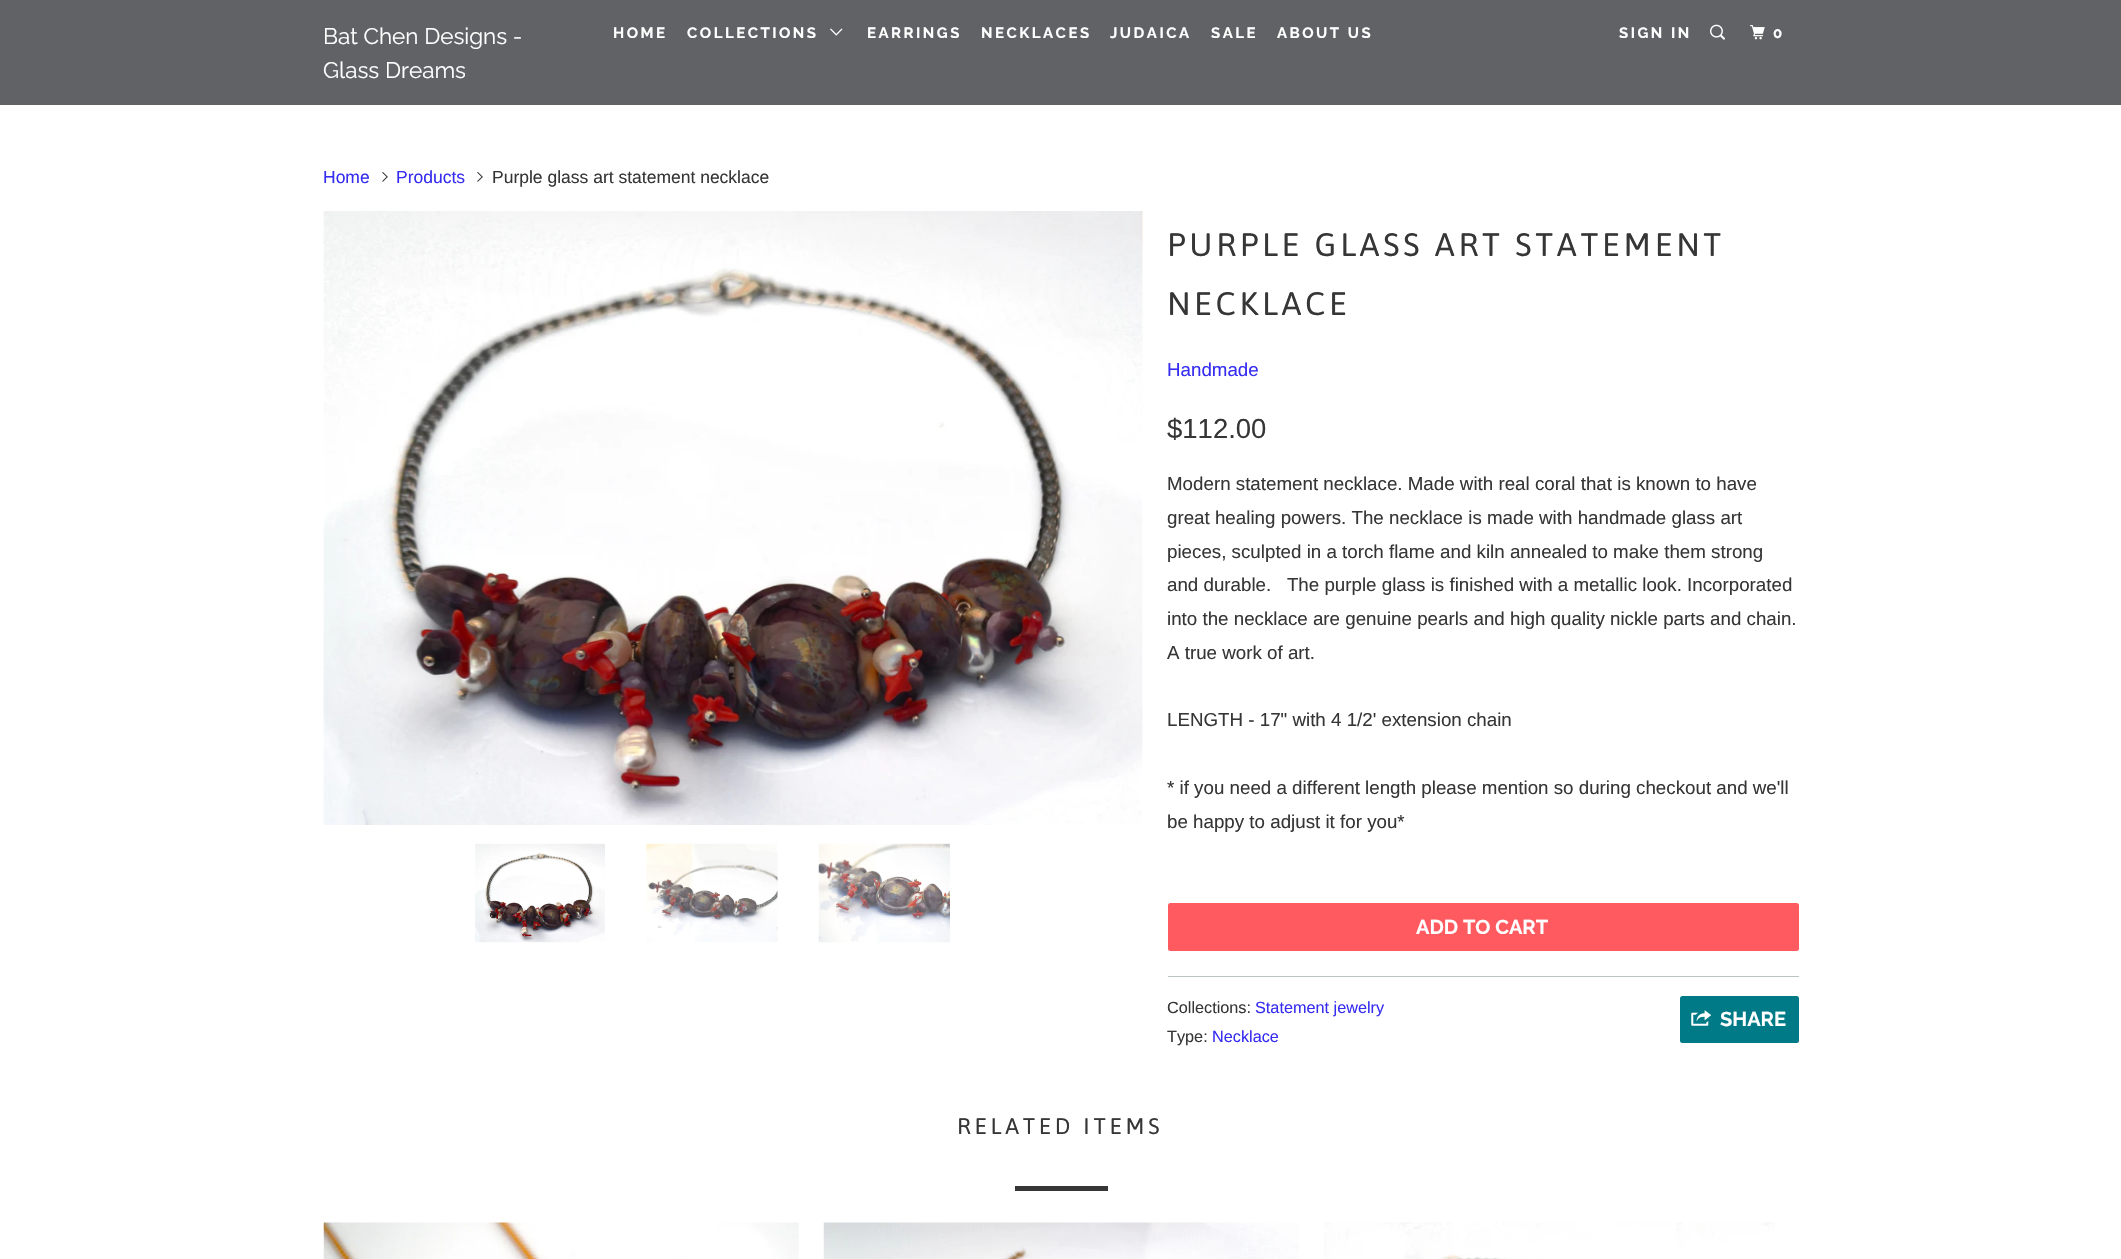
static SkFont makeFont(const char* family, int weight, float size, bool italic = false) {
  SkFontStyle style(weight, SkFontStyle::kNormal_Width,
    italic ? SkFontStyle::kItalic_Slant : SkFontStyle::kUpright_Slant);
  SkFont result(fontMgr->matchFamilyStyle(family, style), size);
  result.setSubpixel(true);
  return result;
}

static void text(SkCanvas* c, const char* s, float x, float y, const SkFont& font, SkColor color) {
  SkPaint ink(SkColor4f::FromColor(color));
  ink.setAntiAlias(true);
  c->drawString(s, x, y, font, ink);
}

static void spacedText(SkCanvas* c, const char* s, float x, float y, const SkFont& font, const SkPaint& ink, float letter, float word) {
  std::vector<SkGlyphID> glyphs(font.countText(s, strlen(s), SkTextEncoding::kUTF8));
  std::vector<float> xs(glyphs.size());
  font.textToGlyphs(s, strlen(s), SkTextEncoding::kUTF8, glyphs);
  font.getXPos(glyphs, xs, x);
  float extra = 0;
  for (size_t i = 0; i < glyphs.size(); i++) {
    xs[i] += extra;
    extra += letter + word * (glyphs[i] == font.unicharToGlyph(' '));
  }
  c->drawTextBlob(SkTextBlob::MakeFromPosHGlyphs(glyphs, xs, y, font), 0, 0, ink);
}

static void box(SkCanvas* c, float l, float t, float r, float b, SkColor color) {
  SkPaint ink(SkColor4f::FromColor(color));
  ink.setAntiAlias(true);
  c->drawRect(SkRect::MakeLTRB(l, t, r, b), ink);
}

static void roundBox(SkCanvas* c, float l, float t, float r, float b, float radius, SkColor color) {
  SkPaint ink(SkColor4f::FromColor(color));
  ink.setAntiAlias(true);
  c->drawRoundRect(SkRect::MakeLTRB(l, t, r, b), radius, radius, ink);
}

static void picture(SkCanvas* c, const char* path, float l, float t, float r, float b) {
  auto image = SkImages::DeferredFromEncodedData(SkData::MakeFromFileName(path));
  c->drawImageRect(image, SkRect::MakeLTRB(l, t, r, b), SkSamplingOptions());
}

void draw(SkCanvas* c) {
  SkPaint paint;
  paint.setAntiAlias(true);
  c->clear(0xffffffff);
  box(c, 0, 0, 2121, 105, 0xff606265);
  SkFont face1 = makeFont("Raleway", 400, 22.5f);
  text(c, "Bat Chen Designs -", 323, 44, face1, 0xffffffff);
  text(c, "Glass Dreams", 323, 78, face1, 0xffffffff);
  SkFont face2 = makeFont("Raleway", 700, 15);
  paint.setColor(0xffffffff);
  spacedText(c, "HOME", 613, 38, face2, paint, 2.5f, 0);
  spacedText(c, "COLLECTIONS", 687, 38, face2, paint, 2.5f, 0);
  picture(c, "img_01.png", 830, 28, 843, 36);
  spacedText(c, "EARRINGS", 867, 38, face2, paint, 2.5f, 0);
  spacedText(c, "NECKLACES", 981, 38, face2, paint, 2.5f, 0);
  spacedText(c, "JUDAICA", 1110, 38, face2, paint, 2.5f, 0);
  spacedText(c, "SALE", 1211, 38, face2, paint, 2.5f, 0);
  spacedText(c, "ABOUT US", 1277, 38, face2, paint, 2.5f, 0);
  spacedText(c, "SIGN IN", 1619, 38, face2, paint, 2.5f, 0);
  picture(c, "img_02.png", 1710, 24, 1725, 40);
  picture(c, "img_03.png", 1750, 25, 1765, 40);
  spacedText(c, "0", 1773, 38, face2, paint, 2.5f, 0);
  SkFont face3 = makeFont("Liberation Sans", 400, 17.5f);
  text(c, "Home", 323, 183, face3, 0xff362df0);
  picture(c, "img_04.png", 382, 172, 388, 182);
  text(c, "Products", 396, 183, face3, 0xff362df0);
  picture(c, "img_04.png", 477, 172, 483, 182);
  text(c, "Purple glass art statement necklace", 492, 183, face3, 0xff363636);
  picture(c, "img_06.png", 1142, 211, 1143, 466);
  picture(c, "img_05.png", 323, 211, 1143, 825);
  picture(c, "img_07.png", 475, 843, 605, 943);
  picture(c, "img_08.png", 646, 843, 778, 942);
  picture(c, "img_09.png", 818, 843, 950, 943);
  SkFont face4 = makeFont("Asap", 400, 32.5f);
  paint.setColor(0xff363636);
  spacedText(c, "PURPLE GLASS ART STATEMENT", 1167, 256, face4, paint, 3.75f, 0);
  spacedText(c, "NECKLACE", 1167, 315, face4, paint, 3.75f, 0);
  SkFont face5 = makeFont("Liberation Sans", 400, 18.75f);
  text(c, "Handmade", 1167, 376, face5, 0xff362df0);
  SkFont face6 = makeFont("Liberation Sans", 400, 27.5f);
  text(c, "$112.00", 1167, 438, face6, 0xff363636);
  text(c, "Modern statement necklace. Made with real coral that is known to have", 1167, 490, face5, 0xff363636);
  text(c, "great healing powers. The necklace is made with handmade glass art", 1167, 524, face5, 0xff363636);
  text(c, "pieces, sculpted in a torch flame and kiln annealed to make them strong", 1167, 558, face5, 0xff363636);
  text(c, "and durable.   The purple glass is finished with a metallic look. Incorporated", 1167, 591, face5, 0xff363636);
  text(c, "into the necklace are genuine pearls and high quality nickle parts and chain.", 1167, 625, face5, 0xff363636);
  text(c, "A true work of art.", 1167, 659, face5, 0xff363636);
  text(c, "LENGTH - 17\" with 4 1/2' extension chain", 1167, 726, face5, 0xff363636);
  text(c, "* if you need a different length please mention so during checkout and we'll", 1167, 794, face5, 0xff363636);
  text(c, "be happy to adjust it for you*", 1167, 828, face5, 0xff363636);
  roundBox(c, 1168, 903, 1799, 951, 2.5f, 0xffff5a5f);
  SkFont face7 = makeFont("Raleway", 700, 20);
  text(c, "ADD TO CART", 1416, 934, face7, 0xffffffff);
  box(c, 1168, 976, 1799, 977, 0xffb8c6c6);
  SkFont face8 = makeFont("Liberation Sans", 400, 16.25f);
  text(c, "Collections:", 1167, 1013, face8, 0xff363636);
  text(c, "Statement jewelry", 1255, 1013, face8, 0xff362df0);
  roundBox(c, 1680, 996, 1799, 1043, 2.5f, 0xff007a87);
  picture(c, "img_10.png", 1691, 1010, 1711, 1026);
  text(c, "SHARE", 1720, 1026, face7, 0xffffffff);
  text(c, "Type:", 1167, 1042, face8, 0xff363636);
  text(c, "Necklace", 1212, 1042, face8, 0xff362df0);
  SkFont face9 = makeFont("Asap", 400, 22.5f);
  spacedText(c, "RELATED ITEMS", 957, 1134, face9, paint, 3.75f, 0);
  box(c, 1015, 1186, 1108, 1191, 0xff363636);
  picture(c, "img_11.png", 323, 1222, 799, 1259);
  picture(c, "img_12.png", 823, 1222, 1299, 1259);
  picture(c, "img_13.png", 1324, 1222, 1775, 1259);
}
